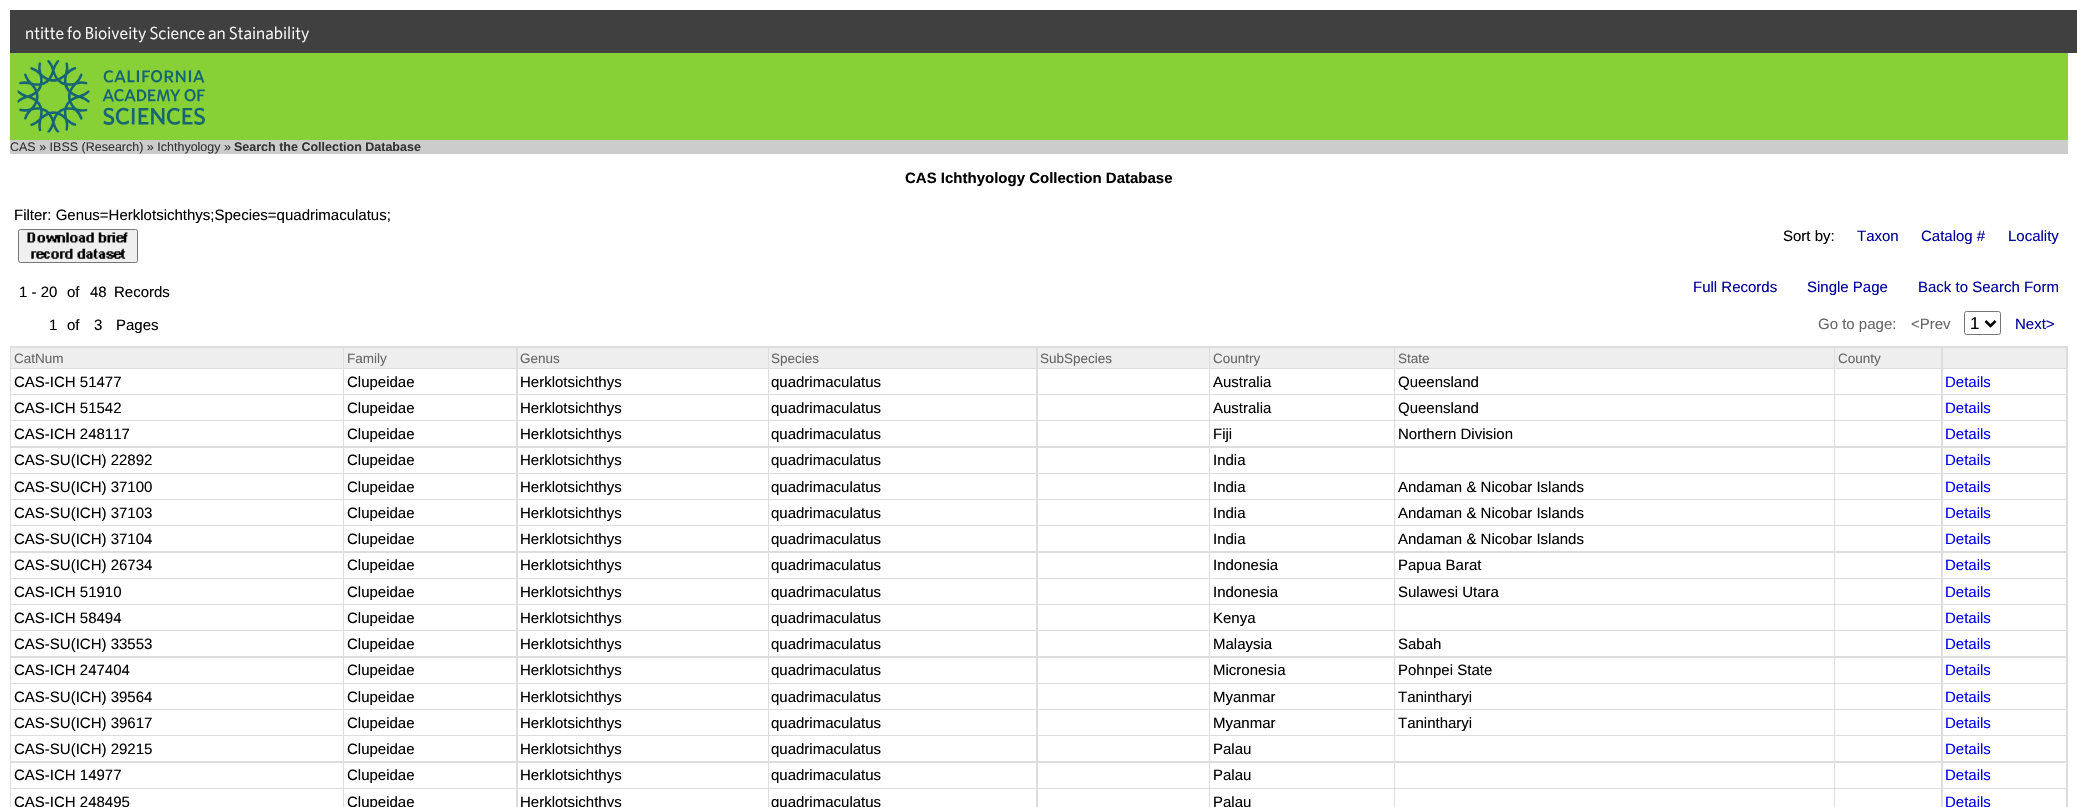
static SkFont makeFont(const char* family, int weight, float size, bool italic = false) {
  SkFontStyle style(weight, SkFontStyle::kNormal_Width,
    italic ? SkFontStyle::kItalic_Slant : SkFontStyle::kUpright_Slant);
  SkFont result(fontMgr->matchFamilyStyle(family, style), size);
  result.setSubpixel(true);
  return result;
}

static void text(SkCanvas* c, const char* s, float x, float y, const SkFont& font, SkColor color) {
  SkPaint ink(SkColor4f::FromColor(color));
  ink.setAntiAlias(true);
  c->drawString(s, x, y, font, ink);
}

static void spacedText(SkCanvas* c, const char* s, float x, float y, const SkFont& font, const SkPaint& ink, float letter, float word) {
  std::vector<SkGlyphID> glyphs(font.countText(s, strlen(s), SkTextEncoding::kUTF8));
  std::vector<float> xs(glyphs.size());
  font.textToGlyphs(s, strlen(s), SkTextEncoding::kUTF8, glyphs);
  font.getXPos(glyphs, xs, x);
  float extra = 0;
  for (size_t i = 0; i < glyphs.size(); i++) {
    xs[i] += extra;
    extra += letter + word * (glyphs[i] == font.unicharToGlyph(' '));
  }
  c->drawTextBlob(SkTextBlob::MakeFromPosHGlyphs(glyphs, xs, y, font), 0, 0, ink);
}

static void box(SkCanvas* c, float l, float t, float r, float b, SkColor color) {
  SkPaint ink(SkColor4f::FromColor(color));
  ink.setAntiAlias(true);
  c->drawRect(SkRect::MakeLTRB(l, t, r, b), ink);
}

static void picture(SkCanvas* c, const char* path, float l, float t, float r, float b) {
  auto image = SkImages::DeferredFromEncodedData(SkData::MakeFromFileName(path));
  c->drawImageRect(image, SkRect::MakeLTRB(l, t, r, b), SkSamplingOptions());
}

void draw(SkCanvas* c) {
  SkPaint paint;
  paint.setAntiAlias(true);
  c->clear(0xffffffff);
  box(c, 10, 10, 2077, 53, 0xff404040);
  SkFont face1 = makeFont("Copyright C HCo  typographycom", 300, 17.5f);
  paint.setColor(0xffffffff);
  spacedText(c, "Institute for Biodiversity Science and Sustainability", 25, 39, face1, paint, 0, -1);
  box(c, 10, 53, 2068, 140, 0xff87d036);
  picture(c, "img_01.png", 17, 60, 205, 133);
  box(c, 10, 140, 2068, 154, 0xffcccccc);
  SkFont face2 = makeFont("Liberation Sans", 400, 12.5f);
  text(c, "CAS » IBSS (Research) » Ichthyology »", 10, 151, face2, 0xff333333);
  SkFont face3 = makeFont("Liberation Sans", 700, 12.5f);
  text(c, "Search the Collection Database", 234, 151, face3, 0xff333333);
  SkFont face4 = makeFont("Liberation Sans", 700, 15);
  text(c, "CAS Ichthyology Collection Database", 905, 183, face4, 0xff000000);
  SkFont face5 = makeFont("Liberation Sans", 400, 15);
  text(c, "Filter: Genus=Herklotsichthys;Species=quadrimaculatus;", 14, 220, face5, 0xff000000);
  paint.setColor(0xffefefef);
  c->drawRoundRect(SkRect::MakeLTRB(18.5f, 229.5f, 137.5f, 262.5f), 2, 2, paint);
  paint.setStyle(SkPaint::kStroke_Style);
  paint.setStrokeWidth(1);
  paint.setColor(0xff767676);
  c->drawRoundRect(SkRect::MakeLTRB(18.5f, 229.5f, 137.5f, 262.5f), 2, 2, paint);
  picture(c, "img_02.png", 27, 232, 128, 259);
  text(c, "Sort by:", 1783, 241, face5, 0xff000000);
  text(c, "Taxon", 1857, 241, face5, 0xff000099);
  text(c, "Catalog #", 1921, 241, face5, 0xff000099);
  text(c, "Locality", 2008, 241, face5, 0xff000099);
  text(c, "1 - 20", 19, 297, face5, 0xff000000);
  text(c, "of", 67, 297, face5, 0xff000000);
  text(c, "48", 90, 297, face5, 0xff000000);
  text(c, "Records", 114, 297, face5, 0xff000000);
  text(c, "1", 49, 330, face5, 0xff000000);
  text(c, "of", 67, 330, face5, 0xff000000);
  text(c, "3", 94, 330, face5, 0xff000000);
  text(c, "Pages", 116, 330, face5, 0xff000000);
  text(c, "Full Records", 1693, 292, face5, 0xff000099);
  text(c, "Single Page", 1807, 292, face5, 0xff000099);
  text(c, "Back to Search Form", 1918, 292, face5, 0xff000099);
  text(c, "Go to page:", 1818, 329, face5, 0xff666666);
  text(c, "<Prev", 1911, 329, face5, 0xff666666);
  c->drawRoundRect(SkRect::MakeLTRB(1964.5f, 311.5f, 2000.5f, 334.5f), 2, 2, paint);
  paint.setStrokeWidth(2.5f);
  paint.setColor(0xff000000);
  c->drawPath(SkPathBuilder().moveTo(1985.5f, 321).lineTo(1990.5f, 326).lineTo(1995.5f, 321).detach(), paint);
  SkFont face6 = makeFont("Liberation Sans", 400, 17);
  text(c, "1", 1970, 329, face6, 0xff000000);
  text(c, "Next>", 2015, 329, face5, 0xff000099);
  box(c, 10, 346, 2068, 807, 0xffdddddd);
  box(c, 11, 348, 343, 368, 0xffeeeeee);
  SkFont face7 = makeFont("Liberation Sans", 400, 13.5f);
  text(c, "CatNum", 14, 363, face7, 0xff666666);
  box(c, 344, 348, 516, 368, 0xffeeeeee);
  text(c, "Family", 347, 363, face7, 0xff666666);
  box(c, 518, 348, 768, 368, 0xffeeeeee);
  text(c, "Genus", 520, 363, face7, 0xff666666);
  box(c, 769, 348, 1036, 368, 0xffeeeeee);
  text(c, "Species", 771, 363, face7, 0xff666666);
  box(c, 1038, 348, 1209, 368, 0xffeeeeee);
  text(c, "SubSpecies", 1040, 363, face7, 0xff666666);
  box(c, 1210, 348, 1394, 368, 0xffeeeeee);
  text(c, "Country", 1213, 363, face7, 0xff666666);
  box(c, 1395, 348, 1834, 368, 0xffeeeeee);
  text(c, "State", 1398, 363, face7, 0xff666666);
  box(c, 1835, 348, 1941, 368, 0xffeeeeee);
  text(c, "County", 1838, 363, face7, 0xff666666);
  box(c, 1943, 348, 2066, 368, 0xffeeeeee);
  box(c, 11, 369, 343, 394, 0xffffffff);
  text(c, "CAS-ICH 51477", 14, 387, face5, 0xff000000);
  box(c, 344, 369, 516, 394, 0xffffffff);
  text(c, "Clupeidae", 347, 387, face5, 0xff000000);
  box(c, 518, 369, 768, 394, 0xffffffff);
  text(c, "Herklotsichthys", 520, 387, face5, 0xff000000);
  box(c, 769, 369, 1036, 394, 0xffffffff);
  text(c, "quadrimaculatus", 771, 387, face5, 0xff000000);
  box(c, 1038, 369, 1209, 394, 0xffffffff);
  box(c, 1210, 369, 1394, 394, 0xffffffff);
  text(c, "Australia", 1213, 387, face5, 0xff000000);
  box(c, 1395, 369, 1834, 394, 0xffffffff);
  text(c, "Queensland", 1398, 387, face5, 0xff000000);
  box(c, 1835, 369, 1941, 394, 0xffffffff);
  box(c, 1943, 369, 2066, 394, 0xffffffff);
  text(c, "Details", 1945, 387, face5, 0xff0000ee);
  box(c, 11, 395, 343, 420, 0xffffffff);
  text(c, "CAS-ICH 51542", 14, 413, face5, 0xff000000);
  box(c, 344, 395, 516, 420, 0xffffffff);
  text(c, "Clupeidae", 347, 413, face5, 0xff000000);
  box(c, 518, 395, 768, 420, 0xffffffff);
  text(c, "Herklotsichthys", 520, 413, face5, 0xff000000);
  box(c, 769, 395, 1036, 420, 0xffffffff);
  text(c, "quadrimaculatus", 771, 413, face5, 0xff000000);
  box(c, 1038, 395, 1209, 420, 0xffffffff);
  box(c, 1210, 395, 1394, 420, 0xffffffff);
  text(c, "Australia", 1213, 413, face5, 0xff000000);
  box(c, 1395, 395, 1834, 420, 0xffffffff);
  text(c, "Queensland", 1398, 413, face5, 0xff000000);
  box(c, 1835, 395, 1941, 420, 0xffffffff);
  box(c, 1943, 395, 2066, 420, 0xffffffff);
  text(c, "Details", 1945, 413, face5, 0xff0000ee);
  box(c, 11, 421, 343, 446, 0xffffffff);
  text(c, "CAS-ICH 248117", 14, 439, face5, 0xff000000);
  box(c, 344, 421, 516, 446, 0xffffffff);
  text(c, "Clupeidae", 347, 439, face5, 0xff000000);
  box(c, 518, 421, 768, 446, 0xffffffff);
  text(c, "Herklotsichthys", 520, 439, face5, 0xff000000);
  box(c, 769, 421, 1036, 446, 0xffffffff);
  text(c, "quadrimaculatus", 771, 439, face5, 0xff000000);
  box(c, 1038, 421, 1209, 446, 0xffffffff);
  box(c, 1210, 421, 1394, 446, 0xffffffff);
  text(c, "Fiji", 1213, 439, face5, 0xff000000);
  box(c, 1395, 421, 1834, 446, 0xffffffff);
  text(c, "Northern Division", 1398, 439, face5, 0xff000000);
  box(c, 1835, 421, 1941, 446, 0xffffffff);
  box(c, 1943, 421, 2066, 446, 0xffffffff);
  text(c, "Details", 1945, 439, face5, 0xff0000ee);
  box(c, 11, 448, 343, 473, 0xffffffff);
  text(c, "CAS-SU(ICH) 22892", 14, 465, face5, 0xff000000);
  box(c, 344, 448, 516, 473, 0xffffffff);
  text(c, "Clupeidae", 347, 465, face5, 0xff000000);
  box(c, 518, 448, 768, 473, 0xffffffff);
  text(c, "Herklotsichthys", 520, 465, face5, 0xff000000);
  box(c, 769, 448, 1036, 473, 0xffffffff);
  text(c, "quadrimaculatus", 771, 465, face5, 0xff000000);
  box(c, 1038, 448, 1209, 473, 0xffffffff);
  box(c, 1210, 448, 1394, 473, 0xffffffff);
  text(c, "India", 1213, 465, face5, 0xff000000);
  box(c, 1395, 448, 1834, 473, 0xffffffff);
  box(c, 1835, 448, 1941, 473, 0xffffffff);
  box(c, 1943, 448, 2066, 473, 0xffffffff);
  text(c, "Details", 1945, 465, face5, 0xff0000ee);
  box(c, 11, 474, 343, 499, 0xffffffff);
  text(c, "CAS-SU(ICH) 37100", 14, 492, face5, 0xff000000);
  box(c, 344, 474, 516, 499, 0xffffffff);
  text(c, "Clupeidae", 347, 492, face5, 0xff000000);
  box(c, 518, 474, 768, 499, 0xffffffff);
  text(c, "Herklotsichthys", 520, 492, face5, 0xff000000);
  box(c, 769, 474, 1036, 499, 0xffffffff);
  text(c, "quadrimaculatus", 771, 492, face5, 0xff000000);
  box(c, 1038, 474, 1209, 499, 0xffffffff);
  box(c, 1210, 474, 1394, 499, 0xffffffff);
  text(c, "India", 1213, 492, face5, 0xff000000);
  box(c, 1395, 474, 1834, 499, 0xffffffff);
  text(c, "Andaman & Nicobar Islands", 1398, 492, face5, 0xff000000);
  box(c, 1835, 474, 1941, 499, 0xffffffff);
  box(c, 1943, 474, 2066, 499, 0xffffffff);
  text(c, "Details", 1945, 492, face5, 0xff0000ee);
  box(c, 11, 500, 343, 525, 0xffffffff);
  text(c, "CAS-SU(ICH) 37103", 14, 518, face5, 0xff000000);
  box(c, 344, 500, 516, 525, 0xffffffff);
  text(c, "Clupeidae", 347, 518, face5, 0xff000000);
  box(c, 518, 500, 768, 525, 0xffffffff);
  text(c, "Herklotsichthys", 520, 518, face5, 0xff000000);
  box(c, 769, 500, 1036, 525, 0xffffffff);
  text(c, "quadrimaculatus", 771, 518, face5, 0xff000000);
  box(c, 1038, 500, 1209, 525, 0xffffffff);
  box(c, 1210, 500, 1394, 525, 0xffffffff);
  text(c, "India", 1213, 518, face5, 0xff000000);
  box(c, 1395, 500, 1834, 525, 0xffffffff);
  text(c, "Andaman & Nicobar Islands", 1398, 518, face5, 0xff000000);
  box(c, 1835, 500, 1941, 525, 0xffffffff);
  box(c, 1943, 500, 2066, 525, 0xffffffff);
  text(c, "Details", 1945, 518, face5, 0xff0000ee);
  box(c, 11, 526, 343, 551, 0xffffffff);
  text(c, "CAS-SU(ICH) 37104", 14, 544, face5, 0xff000000);
  box(c, 344, 526, 516, 551, 0xffffffff);
  text(c, "Clupeidae", 347, 544, face5, 0xff000000);
  box(c, 518, 526, 768, 551, 0xffffffff);
  text(c, "Herklotsichthys", 520, 544, face5, 0xff000000);
  box(c, 769, 526, 1036, 551, 0xffffffff);
  text(c, "quadrimaculatus", 771, 544, face5, 0xff000000);
  box(c, 1038, 526, 1209, 551, 0xffffffff);
  box(c, 1210, 526, 1394, 551, 0xffffffff);
  text(c, "India", 1213, 544, face5, 0xff000000);
  box(c, 1395, 526, 1834, 551, 0xffffffff);
  text(c, "Andaman & Nicobar Islands", 1398, 544, face5, 0xff000000);
  box(c, 1835, 526, 1941, 551, 0xffffffff);
  box(c, 1943, 526, 2066, 551, 0xffffffff);
  text(c, "Details", 1945, 544, face5, 0xff0000ee);
  box(c, 11, 553, 343, 578, 0xffffffff);
  text(c, "CAS-SU(ICH) 26734", 14, 570, face5, 0xff000000);
  box(c, 344, 553, 516, 578, 0xffffffff);
  text(c, "Clupeidae", 347, 570, face5, 0xff000000);
  box(c, 518, 553, 768, 578, 0xffffffff);
  text(c, "Herklotsichthys", 520, 570, face5, 0xff000000);
  box(c, 769, 553, 1036, 578, 0xffffffff);
  text(c, "quadrimaculatus", 771, 570, face5, 0xff000000);
  box(c, 1038, 553, 1209, 578, 0xffffffff);
  box(c, 1210, 553, 1394, 578, 0xffffffff);
  text(c, "Indonesia", 1213, 570, face5, 0xff000000);
  box(c, 1395, 553, 1834, 578, 0xffffffff);
  text(c, "Papua Barat", 1398, 570, face5, 0xff000000);
  box(c, 1835, 553, 1941, 578, 0xffffffff);
  box(c, 1943, 553, 2066, 578, 0xffffffff);
  text(c, "Details", 1945, 570, face5, 0xff0000ee);
  box(c, 11, 579, 343, 604, 0xffffffff);
  text(c, "CAS-ICH 51910", 14, 597, face5, 0xff000000);
  box(c, 344, 579, 516, 604, 0xffffffff);
  text(c, "Clupeidae", 347, 597, face5, 0xff000000);
  box(c, 518, 579, 768, 604, 0xffffffff);
  text(c, "Herklotsichthys", 520, 597, face5, 0xff000000);
  box(c, 769, 579, 1036, 604, 0xffffffff);
  text(c, "quadrimaculatus", 771, 597, face5, 0xff000000);
  box(c, 1038, 579, 1209, 604, 0xffffffff);
  box(c, 1210, 579, 1394, 604, 0xffffffff);
  text(c, "Indonesia", 1213, 597, face5, 0xff000000);
  box(c, 1395, 579, 1834, 604, 0xffffffff);
  text(c, "Sulawesi Utara", 1398, 597, face5, 0xff000000);
  box(c, 1835, 579, 1941, 604, 0xffffffff);
  box(c, 1943, 579, 2066, 604, 0xffffffff);
  text(c, "Details", 1945, 597, face5, 0xff0000ee);
  box(c, 11, 605, 343, 630, 0xffffffff);
  text(c, "CAS-ICH 58494", 14, 623, face5, 0xff000000);
  box(c, 344, 605, 516, 630, 0xffffffff);
  text(c, "Clupeidae", 347, 623, face5, 0xff000000);
  box(c, 518, 605, 768, 630, 0xffffffff);
  text(c, "Herklotsichthys", 520, 623, face5, 0xff000000);
  box(c, 769, 605, 1036, 630, 0xffffffff);
  text(c, "quadrimaculatus", 771, 623, face5, 0xff000000);
  box(c, 1038, 605, 1209, 630, 0xffffffff);
  box(c, 1210, 605, 1394, 630, 0xffffffff);
  text(c, "Kenya", 1213, 623, face5, 0xff000000);
  box(c, 1395, 605, 1834, 630, 0xffffffff);
  box(c, 1835, 605, 1941, 630, 0xffffffff);
  box(c, 1943, 605, 2066, 630, 0xffffffff);
  text(c, "Details", 1945, 623, face5, 0xff0000ee);
  box(c, 11, 631, 343, 656, 0xffffffff);
  text(c, "CAS-SU(ICH) 33553", 14, 649, face5, 0xff000000);
  box(c, 344, 631, 516, 656, 0xffffffff);
  text(c, "Clupeidae", 347, 649, face5, 0xff000000);
  box(c, 518, 631, 768, 656, 0xffffffff);
  text(c, "Herklotsichthys", 520, 649, face5, 0xff000000);
  box(c, 769, 631, 1036, 656, 0xffffffff);
  text(c, "quadrimaculatus", 771, 649, face5, 0xff000000);
  box(c, 1038, 631, 1209, 656, 0xffffffff);
  box(c, 1210, 631, 1394, 656, 0xffffffff);
  text(c, "Malaysia", 1213, 649, face5, 0xff000000);
  box(c, 1395, 631, 1834, 656, 0xffffffff);
  text(c, "Sabah", 1398, 649, face5, 0xff000000);
  box(c, 1835, 631, 1941, 656, 0xffffffff);
  box(c, 1943, 631, 2066, 656, 0xffffffff);
  text(c, "Details", 1945, 649, face5, 0xff0000ee);
  box(c, 11, 658, 343, 683, 0xffffffff);
  text(c, "CAS-ICH 247404", 14, 675, face5, 0xff000000);
  box(c, 344, 658, 516, 683, 0xffffffff);
  text(c, "Clupeidae", 347, 675, face5, 0xff000000);
  box(c, 518, 658, 768, 683, 0xffffffff);
  text(c, "Herklotsichthys", 520, 675, face5, 0xff000000);
  box(c, 769, 658, 1036, 683, 0xffffffff);
  text(c, "quadrimaculatus", 771, 675, face5, 0xff000000);
  box(c, 1038, 658, 1209, 683, 0xffffffff);
  box(c, 1210, 658, 1394, 683, 0xffffffff);
  text(c, "Micronesia", 1213, 675, face5, 0xff000000);
  box(c, 1395, 658, 1834, 683, 0xffffffff);
  text(c, "Pohnpei State", 1398, 675, face5, 0xff000000);
  box(c, 1835, 658, 1941, 683, 0xffffffff);
  box(c, 1943, 658, 2066, 683, 0xffffffff);
  text(c, "Details", 1945, 675, face5, 0xff0000ee);
  box(c, 11, 684, 343, 709, 0xffffffff);
  text(c, "CAS-SU(ICH) 39564", 14, 702, face5, 0xff000000);
  box(c, 344, 684, 516, 709, 0xffffffff);
  text(c, "Clupeidae", 347, 702, face5, 0xff000000);
  box(c, 518, 684, 768, 709, 0xffffffff);
  text(c, "Herklotsichthys", 520, 702, face5, 0xff000000);
  box(c, 769, 684, 1036, 709, 0xffffffff);
  text(c, "quadrimaculatus", 771, 702, face5, 0xff000000);
  box(c, 1038, 684, 1209, 709, 0xffffffff);
  box(c, 1210, 684, 1394, 709, 0xffffffff);
  text(c, "Myanmar", 1213, 702, face5, 0xff000000);
  box(c, 1395, 684, 1834, 709, 0xffffffff);
  text(c, "Tanintharyi", 1398, 702, face5, 0xff000000);
  box(c, 1835, 684, 1941, 709, 0xffffffff);
  box(c, 1943, 684, 2066, 709, 0xffffffff);
  text(c, "Details", 1945, 702, face5, 0xff0000ee);
  box(c, 11, 710, 343, 735, 0xffffffff);
  text(c, "CAS-SU(ICH) 39617", 14, 728, face5, 0xff000000);
  box(c, 344, 710, 516, 735, 0xffffffff);
  text(c, "Clupeidae", 347, 728, face5, 0xff000000);
  box(c, 518, 710, 768, 735, 0xffffffff);
  text(c, "Herklotsichthys", 520, 728, face5, 0xff000000);
  box(c, 769, 710, 1036, 735, 0xffffffff);
  text(c, "quadrimaculatus", 771, 728, face5, 0xff000000);
  box(c, 1038, 710, 1209, 735, 0xffffffff);
  box(c, 1210, 710, 1394, 735, 0xffffffff);
  text(c, "Myanmar", 1213, 728, face5, 0xff000000);
  box(c, 1395, 710, 1834, 735, 0xffffffff);
  text(c, "Tanintharyi", 1398, 728, face5, 0xff000000);
  box(c, 1835, 710, 1941, 735, 0xffffffff);
  box(c, 1943, 710, 2066, 735, 0xffffffff);
  text(c, "Details", 1945, 728, face5, 0xff0000ee);
  box(c, 11, 736, 343, 761, 0xffffffff);
  text(c, "CAS-SU(ICH) 29215", 14, 754, face5, 0xff000000);
  box(c, 344, 736, 516, 761, 0xffffffff);
  text(c, "Clupeidae", 347, 754, face5, 0xff000000);
  box(c, 518, 736, 768, 761, 0xffffffff);
  text(c, "Herklotsichthys", 520, 754, face5, 0xff000000);
  box(c, 769, 736, 1036, 761, 0xffffffff);
  text(c, "quadrimaculatus", 771, 754, face5, 0xff000000);
  box(c, 1038, 736, 1209, 761, 0xffffffff);
  box(c, 1210, 736, 1394, 761, 0xffffffff);
  text(c, "Palau", 1213, 754, face5, 0xff000000);
  box(c, 1395, 736, 1834, 761, 0xffffffff);
  box(c, 1835, 736, 1941, 761, 0xffffffff);
  box(c, 1943, 736, 2066, 761, 0xffffffff);
  text(c, "Details", 1945, 754, face5, 0xff0000ee);
  box(c, 11, 763, 343, 788, 0xffffffff);
  text(c, "CAS-ICH 14977", 14, 780, face5, 0xff000000);
  box(c, 344, 763, 516, 788, 0xffffffff);
  text(c, "Clupeidae", 347, 780, face5, 0xff000000);
  box(c, 518, 763, 768, 788, 0xffffffff);
  text(c, "Herklotsichthys", 520, 780, face5, 0xff000000);
  box(c, 769, 763, 1036, 788, 0xffffffff);
  text(c, "quadrimaculatus", 771, 780, face5, 0xff000000);
  box(c, 1038, 763, 1209, 788, 0xffffffff);
  box(c, 1210, 763, 1394, 788, 0xffffffff);
  text(c, "Palau", 1213, 780, face5, 0xff000000);
  box(c, 1395, 763, 1834, 788, 0xffffffff);
  box(c, 1835, 763, 1941, 788, 0xffffffff);
  box(c, 1943, 763, 2066, 788, 0xffffffff);
  text(c, "Details", 1945, 780, face5, 0xff0000ee);
  box(c, 11, 789, 343, 807, 0xffffffff);
  text(c, "CAS-ICH 248495", 14, 807, face5, 0xff000000);
  box(c, 344, 789, 516, 807, 0xffffffff);
  text(c, "Clupeidae", 347, 807, face5, 0xff000000);
  box(c, 518, 789, 768, 807, 0xffffffff);
  text(c, "Herklotsichthys", 520, 807, face5, 0xff000000);
  box(c, 769, 789, 1036, 807, 0xffffffff);
  text(c, "quadrimaculatus", 771, 807, face5, 0xff000000);
  box(c, 1038, 789, 1209, 807, 0xffffffff);
  box(c, 1210, 789, 1394, 807, 0xffffffff);
  text(c, "Palau", 1213, 807, face5, 0xff000000);
  box(c, 1395, 789, 1834, 807, 0xffffffff);
  box(c, 1835, 789, 1941, 807, 0xffffffff);
  box(c, 1943, 789, 2066, 807, 0xffffffff);
  text(c, "Details", 1945, 807, face5, 0xff0000ee);
}
